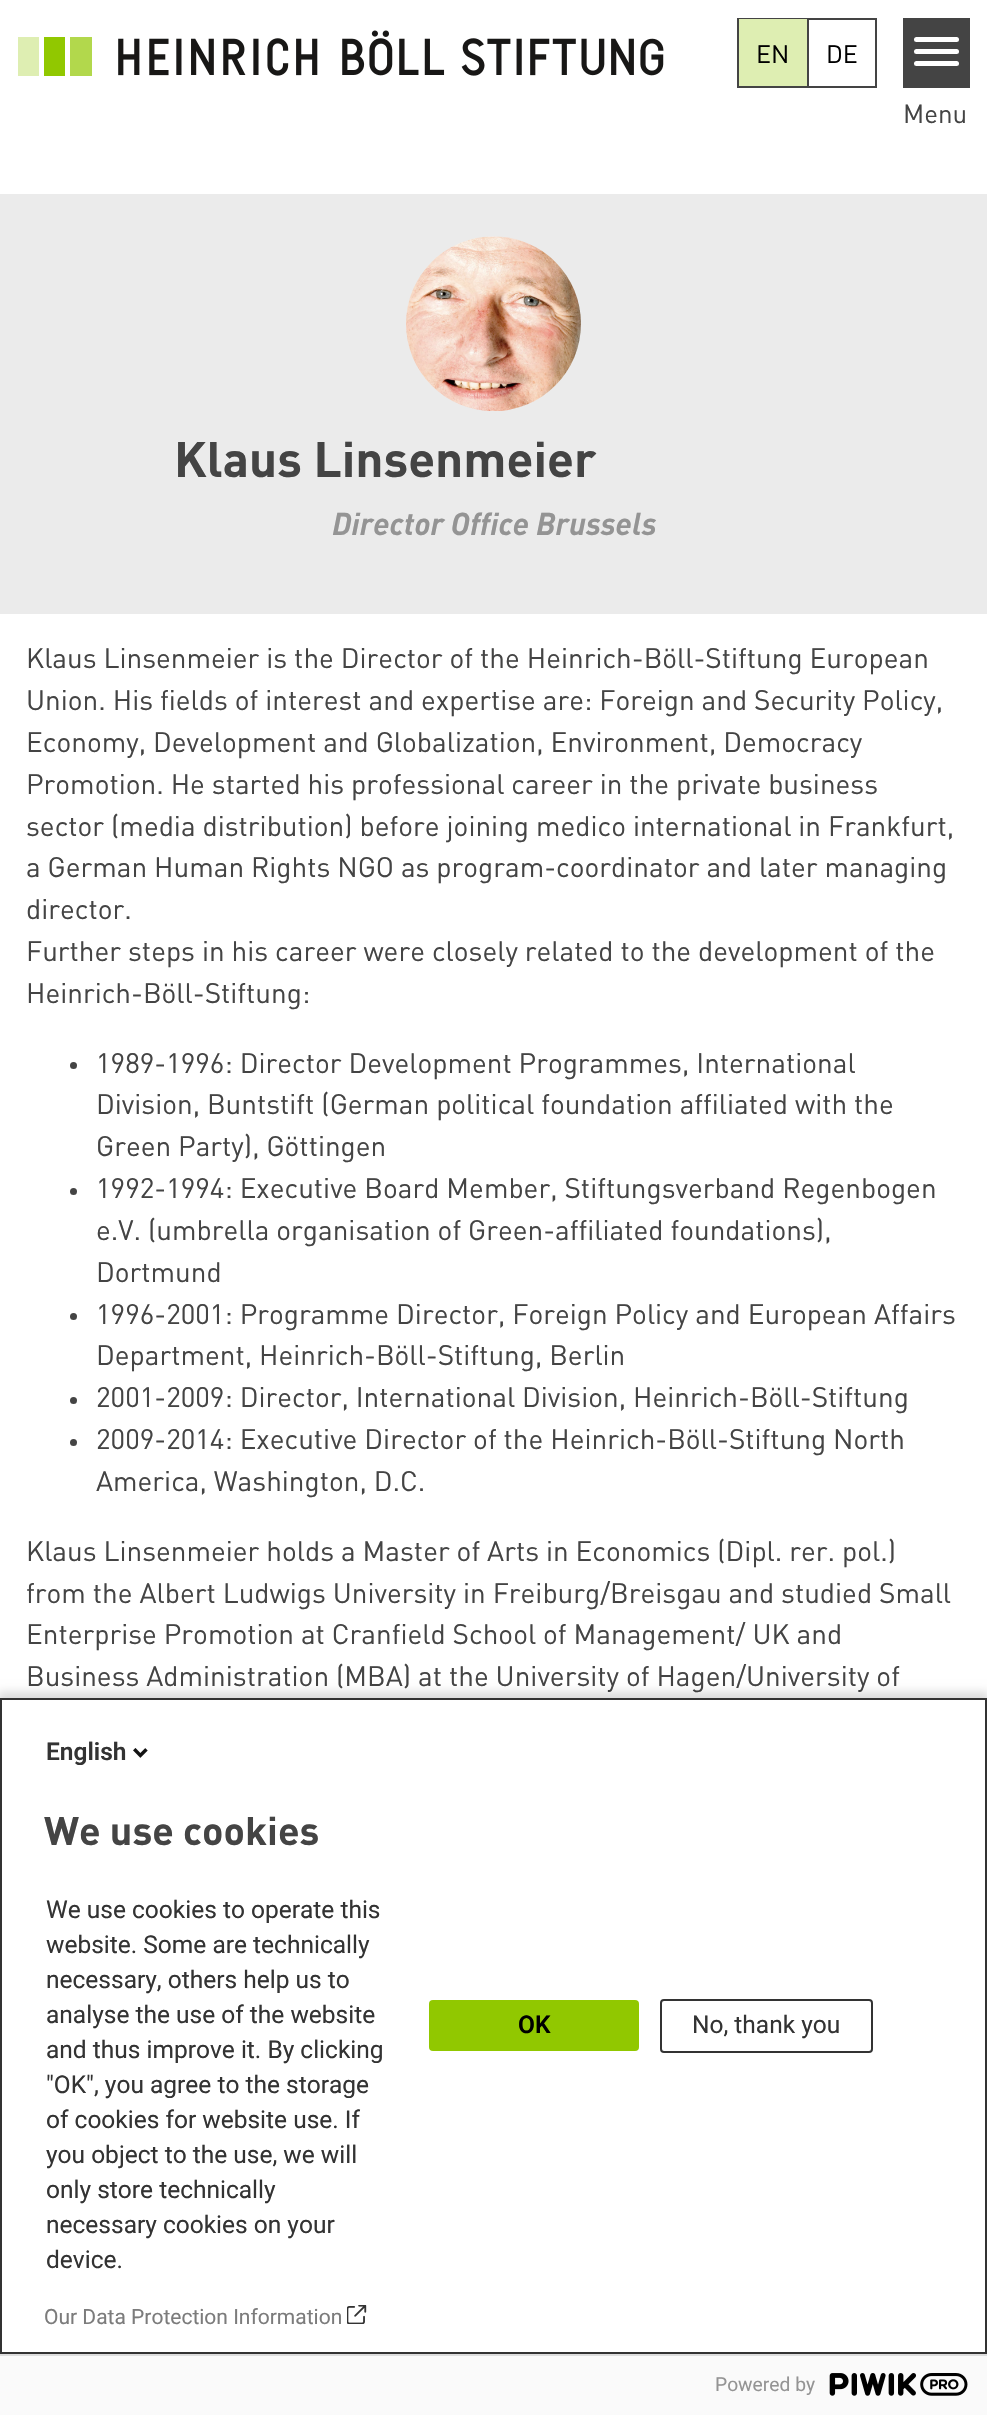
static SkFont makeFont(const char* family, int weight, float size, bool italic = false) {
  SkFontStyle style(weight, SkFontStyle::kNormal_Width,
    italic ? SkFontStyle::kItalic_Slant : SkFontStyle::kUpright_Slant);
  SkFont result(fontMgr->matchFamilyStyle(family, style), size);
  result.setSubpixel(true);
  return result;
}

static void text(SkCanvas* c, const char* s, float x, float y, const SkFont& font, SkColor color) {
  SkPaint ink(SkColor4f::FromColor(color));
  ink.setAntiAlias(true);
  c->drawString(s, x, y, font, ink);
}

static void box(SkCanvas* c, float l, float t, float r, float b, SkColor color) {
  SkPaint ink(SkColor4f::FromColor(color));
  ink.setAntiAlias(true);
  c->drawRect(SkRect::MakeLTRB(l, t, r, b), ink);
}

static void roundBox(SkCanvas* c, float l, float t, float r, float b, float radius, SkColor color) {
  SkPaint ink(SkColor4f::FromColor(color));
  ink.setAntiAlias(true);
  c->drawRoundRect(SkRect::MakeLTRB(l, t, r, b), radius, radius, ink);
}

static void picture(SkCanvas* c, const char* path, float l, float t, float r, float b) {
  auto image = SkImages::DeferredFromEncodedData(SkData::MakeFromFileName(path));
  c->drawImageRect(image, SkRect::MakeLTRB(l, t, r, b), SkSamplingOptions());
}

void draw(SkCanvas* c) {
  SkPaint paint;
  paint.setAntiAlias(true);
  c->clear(0xffffffff);
  picture(c, "img_01.png", 18, 30, 664, 76);
  box(c, 737, 18, 807, 19, 0xff444444);
  box(c, 737, 86, 807, 88, 0xff444444);
  box(c, 737, 18, 739, 88, 0xff444444);
  box(c, 739, 19, 807, 86, 0xffdeeeb2);
  SkFont face1 = makeFont("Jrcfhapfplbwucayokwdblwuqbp", 400, 25);
  text(c, "EN", 756, 63, face1, 0xff000000);
  paint.setStyle(SkPaint::kStroke_Style);
  paint.setStrokeWidth(2);
  paint.setColor(0xff444444);
  c->drawRect(SkRect::MakeLTRB(808, 19, 876, 87), paint);
  text(c, "DE", 826, 63, face1, 0xff000000);
  box(c, 903, 18, 970, 88, 0xff444444);
  roundBox(c, 914, 49, 959, 54, 2.5f, 0xffffffff);
  roundBox(c, 914, 37, 959, 42, 2.5f, 0xffffffff);
  roundBox(c, 914, 61, 959, 66, 2.5f, 0xffffffff);
  SkFont face2 = makeFont("Jrcfhapfplbwucayokwdblwuqbp", 400, 26);
  text(c, "Menu", 903, 123, face2, 0xff444444);
  box(c, 0, 194, 987, 614, 0xffebebeb);
  picture(c, "img_02.png", 406, 236, 581, 411);
  SkFont face3 = makeFont("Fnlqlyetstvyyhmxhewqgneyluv", 700, 49.25f);
  text(c, "Klaus Linsenmeier", 174, 477, face3, 0xff444444);
  SkFont face4 = makeFont("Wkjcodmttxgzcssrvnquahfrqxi", 700, 31.25f, true);
  text(c, "Director Office Brussels", 332, 535, face4, 0xff949494);
  SkFont face5 = makeFont("Jrcfhapfplbwucayokwdblwuqbp", 400, 27.9f);
  text(c, "Klaus Linsenmeier is the Director of the Heinrich-Böll-Stiftung European", 26, 668, face5, 0xff444444);
  text(c, "Union. His fields of interest and expertise are: Foreign and Security Policy,", 26, 710, face5, 0xff444444);
  text(c, "Economy, Development and Globalization, Environment, Democracy", 26, 752, face5, 0xff444444);
  text(c, "Promotion. He started his professional career in the private business", 26, 794, face5, 0xff444444);
  text(c, "sector (media distribution) before joining medico international in Frankfurt,", 26, 836, face5, 0xff444444);
  text(c, "a German Human Rights NGO as program-coordinator and later managing", 26, 877, face5, 0xff444444);
  text(c, "director.", 26, 919, face5, 0xff444444);
  text(c, "Further steps in his career were closely related to the development of the", 26, 961, face5, 0xff444444);
  text(c, "Heinrich-Böll-Stiftung:", 26, 1003, face5, 0xff444444);
  paint.setStyle(SkPaint::kFill_Style);
  c->drawCircle(73.5f, 1065.5f, 3.5f, paint);
  text(c, "1989-1996: Director Development Programmes, International", 96, 1073, face5, 0xff444444);
  text(c, "Division, Buntstift (German political foundation affiliated with the", 96, 1114, face5, 0xff444444);
  text(c, "Green Party), Göttingen", 96, 1156, face5, 0xff444444);
  c->drawCircle(73.5f, 1191.5f, 3.5f, paint);
  text(c, "1992-1994: Executive Board Member, Stiftungsverband Regenbogen", 96, 1198, face5, 0xff444444);
  text(c, "e.V. (umbrella organisation of Green-affiliated foundations),", 96, 1240, face5, 0xff444444);
  text(c, "Dortmund", 96, 1282, face5, 0xff444444);
  c->drawCircle(73.5f, 1316.5f, 3.5f, paint);
  text(c, "1996-2001: Programme Director, Foreign Policy and European Affairs", 96, 1324, face5, 0xff444444);
  text(c, "Department, Heinrich-Böll-Stiftung, Berlin", 96, 1365, face5, 0xff444444);
  c->drawCircle(73.5f, 1400.5f, 3.5f, paint);
  text(c, "2001-2009: Director, International Division, Heinrich-Böll-Stiftung", 96, 1407, face5, 0xff444444);
  c->drawCircle(73.5f, 1442.5f, 3.5f, paint);
  text(c, "2009-2014: Executive Director of the Heinrich-Böll-Stiftung North", 96, 1449, face5, 0xff444444);
  text(c, "America, Washington, D.C.", 96, 1491, face5, 0xff444444);
  text(c, "Klaus Linsenmeier holds a Master of Arts in Economics (Dipl. rer. pol.)", 26, 1561, face5, 0xff444444);
  text(c, "from the Albert Ludwigs University in Freiburg/Breisgau and studied Small", 26, 1603, face5, 0xff444444);
  text(c, "Enterprise Promotion at Cranfield School of Management/ UK and", 26, 1644, face5, 0xff444444);
  text(c, "Business Administration (MBA) at the University of Hagen/University of", 26, 1686, face5, 0xff444444);
  paint.setColor(0x24000000);
  paint.setMaskFilter(SkMaskFilter::MakeBlur(kNormal_SkBlurStyle, 4.5f));
  c->drawRect(SkRect::MakeLTRB(-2, 1692, 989, 2413), paint);
  paint.setMaskFilter(nullptr);
  paint.setColor(0xffffffff);
  c->drawRect(SkRect::MakeLTRB(1, 1699, 986, 2353), paint);
  paint.setStyle(SkPaint::kStroke_Style);
  paint.setColor(0xff333333);
  c->drawRect(SkRect::MakeLTRB(1, 1699, 986, 2353), paint);
  SkFont face6 = makeFont("Roboto", 600, 24.5f);
  text(c, "English", 46, 1760, face6, 0xff333333);
  picture(c, "img_03.png", 133, 1748, 148, 1758);
  SkFont face7 = makeFont("Fnlqlyetstvyyhmxhewqgneyluv", 700, 39.5f);
  text(c, "We use cookies", 44, 1845, face7, 0xff444444);
  SkFont face8 = makeFont("Roboto", 400, 24.5f);
  text(c, "We use cookies to operate this", 46, 1918, face8, 0xff333333);
  text(c, "website. Some are technically", 46, 1953, face8, 0xff333333);
  text(c, "necessary, others help us to", 46, 1988, face8, 0xff333333);
  text(c, "analyse the use of the website", 46, 2023, face8, 0xff333333);
  text(c, "and thus improve it. By clicking", 46, 2058, face8, 0xff333333);
  text(c, "\"OK\", you agree to the storage", 46, 2093, face8, 0xff333333);
  text(c, "of cookies for website use. If", 46, 2128, face8, 0xff333333);
  text(c, "you object to the use, we will", 46, 2163, face8, 0xff333333);
  text(c, "only store technically", 46, 2198, face8, 0xff333333);
  text(c, "necessary cookies on your", 46, 2233, face8, 0xff333333);
  text(c, "device.", 46, 2268, face8, 0xff333333);
  SkFont face9 = makeFont("Roboto", 400, 21);
  text(c, "Our Data Protection Information", 44, 2324, face9, 0xff7c7c7c);
  picture(c, "img_04.png", 347, 2305, 367, 2324);
  roundBox(c, 429, 2000, 639, 2051, 4, 0xff91c800);
  text(c, "OK", 518, 2033, face6, 0xff000000);
  c->drawRoundRect(SkRect::MakeLTRB(661, 2000, 872, 2052), 3, 3, paint);
  text(c, "No, thank you", 692, 2033, face8, 0xff333333);
  box(c, 0, 2356, 987, 2415, 0xfffafafa);
  box(c, 0, 2354, 987, 2356, 0xffdddddd);
  SkFont face10 = makeFont("Roboto", 400, 19.25f);
  text(c, "Powered by", 715, 2391, face10, 0xff949494);
  picture(c, "img_05.png", 829, 2373, 968, 2396);
}
